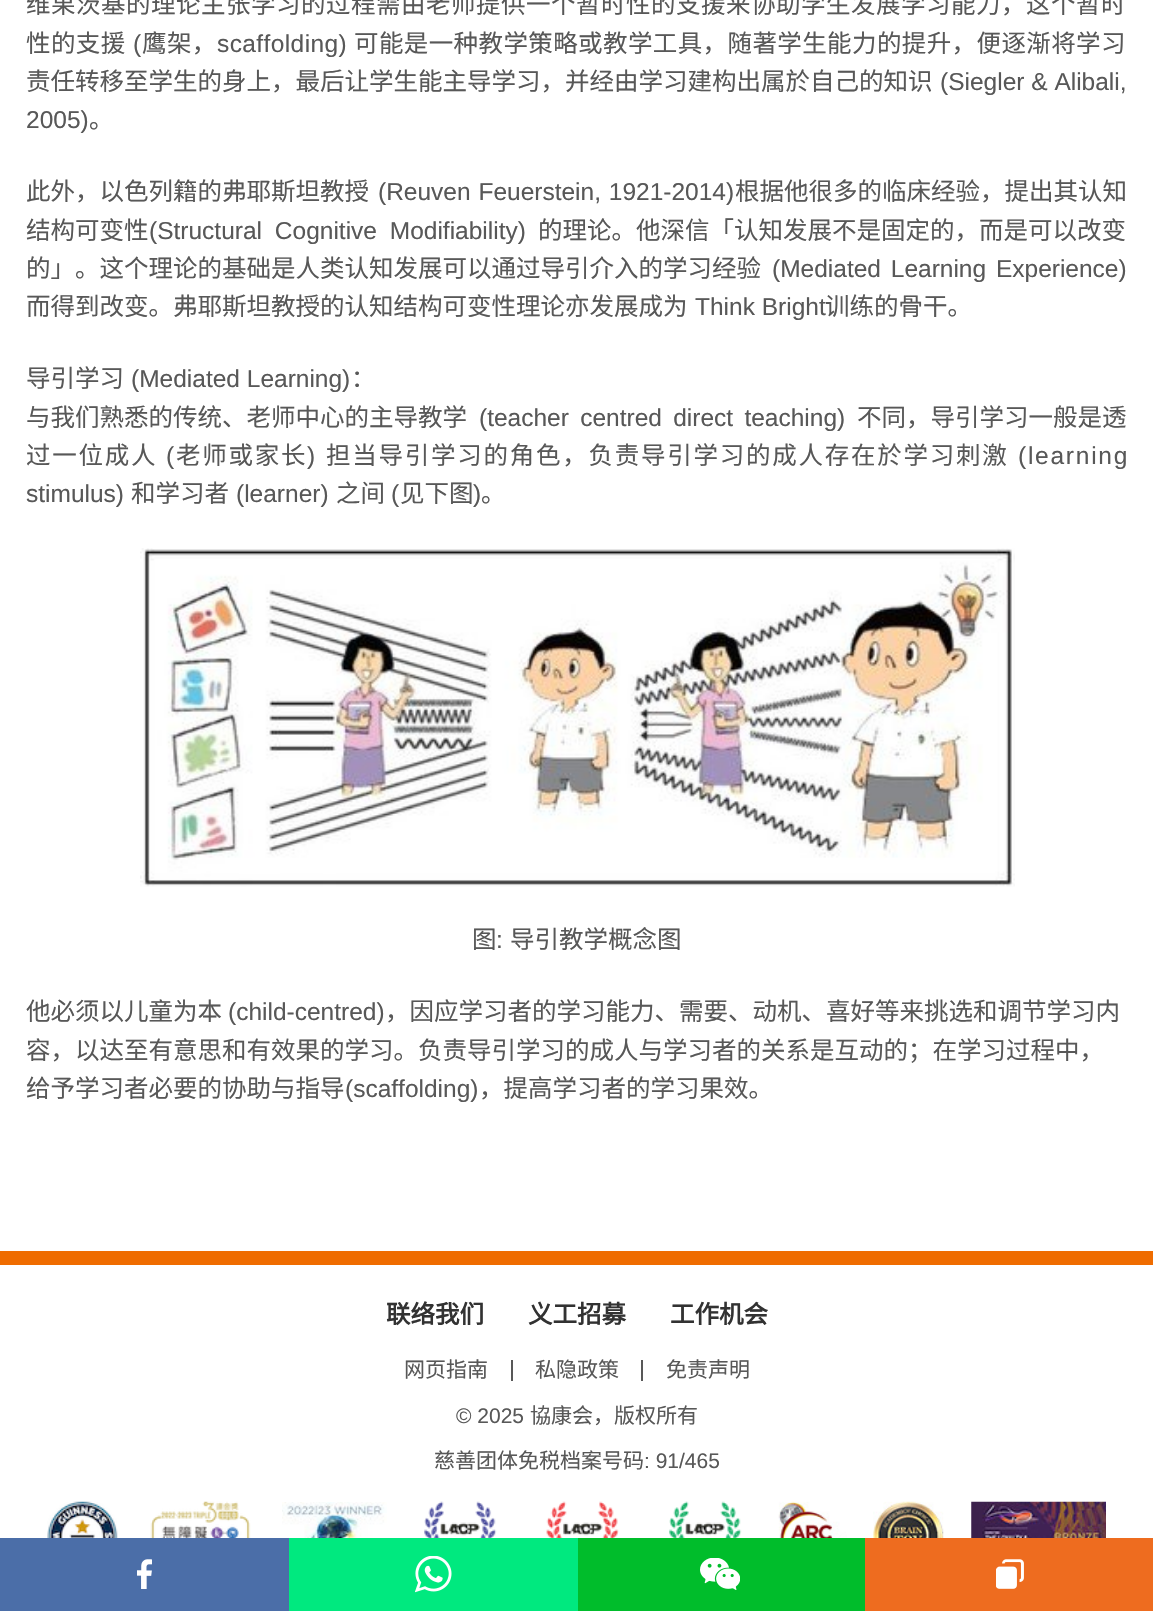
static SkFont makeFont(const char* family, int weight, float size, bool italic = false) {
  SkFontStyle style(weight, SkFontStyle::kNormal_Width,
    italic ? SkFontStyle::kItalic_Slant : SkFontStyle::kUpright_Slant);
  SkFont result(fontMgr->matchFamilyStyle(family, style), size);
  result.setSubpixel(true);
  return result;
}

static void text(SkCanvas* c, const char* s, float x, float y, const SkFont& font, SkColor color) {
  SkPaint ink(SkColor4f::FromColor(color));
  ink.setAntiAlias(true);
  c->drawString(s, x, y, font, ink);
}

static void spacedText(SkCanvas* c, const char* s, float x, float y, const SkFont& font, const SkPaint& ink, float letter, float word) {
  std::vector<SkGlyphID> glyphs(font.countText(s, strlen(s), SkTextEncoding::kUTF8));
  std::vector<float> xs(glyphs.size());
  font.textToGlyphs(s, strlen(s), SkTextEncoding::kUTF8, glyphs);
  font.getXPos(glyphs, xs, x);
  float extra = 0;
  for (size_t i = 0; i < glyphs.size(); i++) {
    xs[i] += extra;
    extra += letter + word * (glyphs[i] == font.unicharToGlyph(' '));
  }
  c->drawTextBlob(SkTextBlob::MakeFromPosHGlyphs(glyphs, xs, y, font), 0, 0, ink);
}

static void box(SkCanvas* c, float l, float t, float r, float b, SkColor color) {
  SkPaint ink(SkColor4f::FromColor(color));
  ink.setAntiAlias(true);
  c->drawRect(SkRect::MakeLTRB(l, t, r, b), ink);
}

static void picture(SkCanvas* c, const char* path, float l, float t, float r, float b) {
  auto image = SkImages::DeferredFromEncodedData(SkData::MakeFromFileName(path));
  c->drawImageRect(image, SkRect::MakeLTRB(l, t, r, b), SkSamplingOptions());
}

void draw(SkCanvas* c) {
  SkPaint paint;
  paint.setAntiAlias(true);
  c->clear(0xffffffff);
  SkFont face1 = makeFont("Noto Sans CJK SC", 400, 24.5f);
  paint.setColor(0xff585858);
  spacedText(c, "维果茨基的理论主张学习的过程需由老师提供一个暂时性的支援来协助学生发展学习能力，这个暂时", 26, 13, face1, paint, 0.5f, 0);
  spacedText(c, "性的支援", 26, 52, face1, paint, 0.4f, 0);
  SkFont face2 = makeFont("Liberation Sans", 400, 24.5f);
  spacedText(c, "(", 133, 52, face2, paint, 0.4f, 0);
  spacedText(c, "鹰架，", 142, 52, face1, paint, 0.4f, 0);
  spacedText(c, "scaffolding)", 217, 52, face2, paint, 0.4f, 0);
  spacedText(c, "可能是一种教学策略或教学工具，随著学生能力的提升，便逐渐将学习", 354, 52, face1, paint, 0.4f, 0);
  text(c, "责任转移至学生的身上，最后让学生能主导学习，并经由学习建构出属於自己的知识", 26, 90, face1, 0xff585858);
  text(c, "(Siegler & Alibali,", 940, 90, face2, 0xff585858);
  text(c, "2005)", 26, 128, face2, 0xff585858);
  text(c, "。", 89, 128, face1, 0xff585858);
  text(c, "此外，以色列籍的弗耶斯坦教授", 26, 200, face1, 0xff585858);
  spacedText(c, "(Reuven Feuerstein, 1921-2014)", 378, 200, face2, paint, 0, 1);
  text(c, "根据他很多的临床经验，提出其认知", 735, 200, face1, 0xff585858);
  text(c, "结构可变性", 26, 239, face1, 0xff585858);
  spacedText(c, "(Structural Cognitive Modifiability)", 149, 239, face2, paint, 0, 6);
  text(c, "的理论。他深信「认知发展不是固定的，而是可以改变", 538, 239, face1, 0xff585858);
  text(c, "的」。这个理论的基础是人类认知发展可以通过导引介入的学习经验", 26, 277, face1, 0xff585858);
  spacedText(c, "(Mediated Learning Experience)", 772, 277, face2, paint, 0, 3);
  text(c, "而得到改变。弗耶斯坦教授的认知结构可变性理论亦发展成为", 26, 315, face1, 0xff585858);
  text(c, "Think Bright", 695, 315, face2, 0xff585858);
  text(c, "训练的骨干。", 825, 315, face1, 0xff585858);
  text(c, "导引学习", 26, 387, face1, 0xff585858);
  text(c, "(Mediated Learning)", 131, 387, face2, 0xff585858);
  text(c, "：", 351, 387, face1, 0xff585858);
  text(c, "与我们熟悉的传统、老师中心的主导教学", 26, 426, face1, 0xff585858);
  spacedText(c, "(teacher centred direct teaching)", 479, 426, face2, paint, 0, 4.5f);
  text(c, "不同，导引学习一般是透", 857, 426, face1, 0xff585858);
  spacedText(c, "过一位成人", 26, 464, face1, paint, 1.75f, 0);
  spacedText(c, "(", 166, 464, face2, paint, 1.75f, 0);
  spacedText(c, "老师或家长", 176, 464, face1, paint, 1.75f, 0);
  spacedText(c, ")", 307, 464, face2, paint, 1.75f, 0);
  spacedText(c, "担当导引学习的角色，负责导引学习的成人存在於学习刺激", 326, 464, face1, paint, 1.75f, 0);
  spacedText(c, "(learning", 1018, 464, face2, paint, 1.75f, 0);
  text(c, "stimulus)", 26, 502, face2, 0xff585858);
  text(c, "和学习者", 131, 502, face1, 0xff585858);
  text(c, "(learner)", 236, 502, face2, 0xff585858);
  text(c, "之间", 336, 502, face1, 0xff585858);
  text(c, "(", 391, 502, face2, 0xff585858);
  text(c, "见下图", 400, 502, face1, 0xff585858);
  text(c, ")", 473, 502, face2, 0xff585858);
  text(c, "。", 481, 502, face1, 0xff585858);
  picture(c, "img_01.png", 140, 548, 1015, 887);
  text(c, "图", 472, 948, face1, 0xff585858);
  text(c, ":", 496, 948, face2, 0xff585858);
  text(c, "导引教学概念图", 510, 948, face1, 0xff585858);
  text(c, "他必须以儿童为本", 26, 1020, face1, 0xff585858);
  text(c, "(child-centred)", 228, 1020, face2, 0xff585858);
  text(c, "，因应学习者的学习能力、需要、动机、喜好等来挑选和调节学习内", 385, 1020, face1, 0xff585858);
  text(c, "容，以达至有意思和有效果的学习。负责导引学习的成人与学习者的关系是互动的；在学习过程中，", 26, 1059, face1, 0xff585858);
  text(c, "给予学习者必要的协助与指导", 26, 1097, face1, 0xff585858);
  text(c, "(scaffolding)", 345, 1097, face2, 0xff585858);
  text(c, "，提高学习者的学习果效。", 479, 1097, face1, 0xff585858);
  box(c, 0, 1251, 1153, 1265, 0xffef6c00);
  SkFont face3 = makeFont("Noto Sans CJK SC", 700, 24.5f);
  text(c, "联络我们", 386, 1323, face3, 0xff323232);
  text(c, "义工招募", 528, 1323, face3, 0xff323232);
  text(c, "工作机会", 670, 1323, face3, 0xff323232);
  SkFont face4 = makeFont("Noto Sans CJK SC", 400, 21);
  text(c, "网页指南", 404, 1377, face4, 0xff585858);
  box(c, 511, 1360, 513, 1381, 0xff585858);
  text(c, "私隐政策", 535, 1377, face4, 0xff585858);
  box(c, 641, 1360, 643, 1381, 0xff585858);
  text(c, "免责声明", 666, 1377, face4, 0xff585858);
  SkFont face5 = makeFont("Liberation Sans", 400, 21);
  text(c, "© 2025", 456, 1423, face5, 0xff585858);
  text(c, "協康会，版权所有", 530, 1423, face4, 0xff585858);
  text(c, "慈善团体免税档案号码", 434, 1468, face4, 0xff585858);
  text(c, ": 91/465", 644, 1468, face5, 0xff585858);
  picture(c, "img_02.png", 47, 1501, 118, 1538);
  picture(c, "img_03.png", 150, 1501, 251, 1538);
  picture(c, "img_04.png", 282, 1502, 387, 1538);
  picture(c, "img_05.png", 424, 1501, 497, 1538);
  picture(c, "img_06.png", 546, 1501, 619, 1538);
  picture(c, "img_07.png", 669, 1501, 742, 1538);
  picture(c, "img_08.png", 778, 1501, 847, 1538);
  picture(c, "img_09.png", 873, 1501, 944, 1538);
  picture(c, "img_10.png", 971, 1501, 1106, 1538);
  box(c, 0, 1538, 289, 1611, 0xff4b6ea8);
  picture(c, "img_11.png", 137, 1559, 152, 1589);
  box(c, 289, 1538, 578, 1611, 0xff00e97f);
  picture(c, "img_12.png", 415, 1556, 452, 1593);
  box(c, 578, 1538, 865, 1611, 0xff00bd2b);
  picture(c, "img_13.png", 700, 1558, 740, 1590);
  box(c, 865, 1538, 1153, 1611, 0xffee6c1f);
  picture(c, "img_14.png", 996, 1559, 1024, 1589);
}
